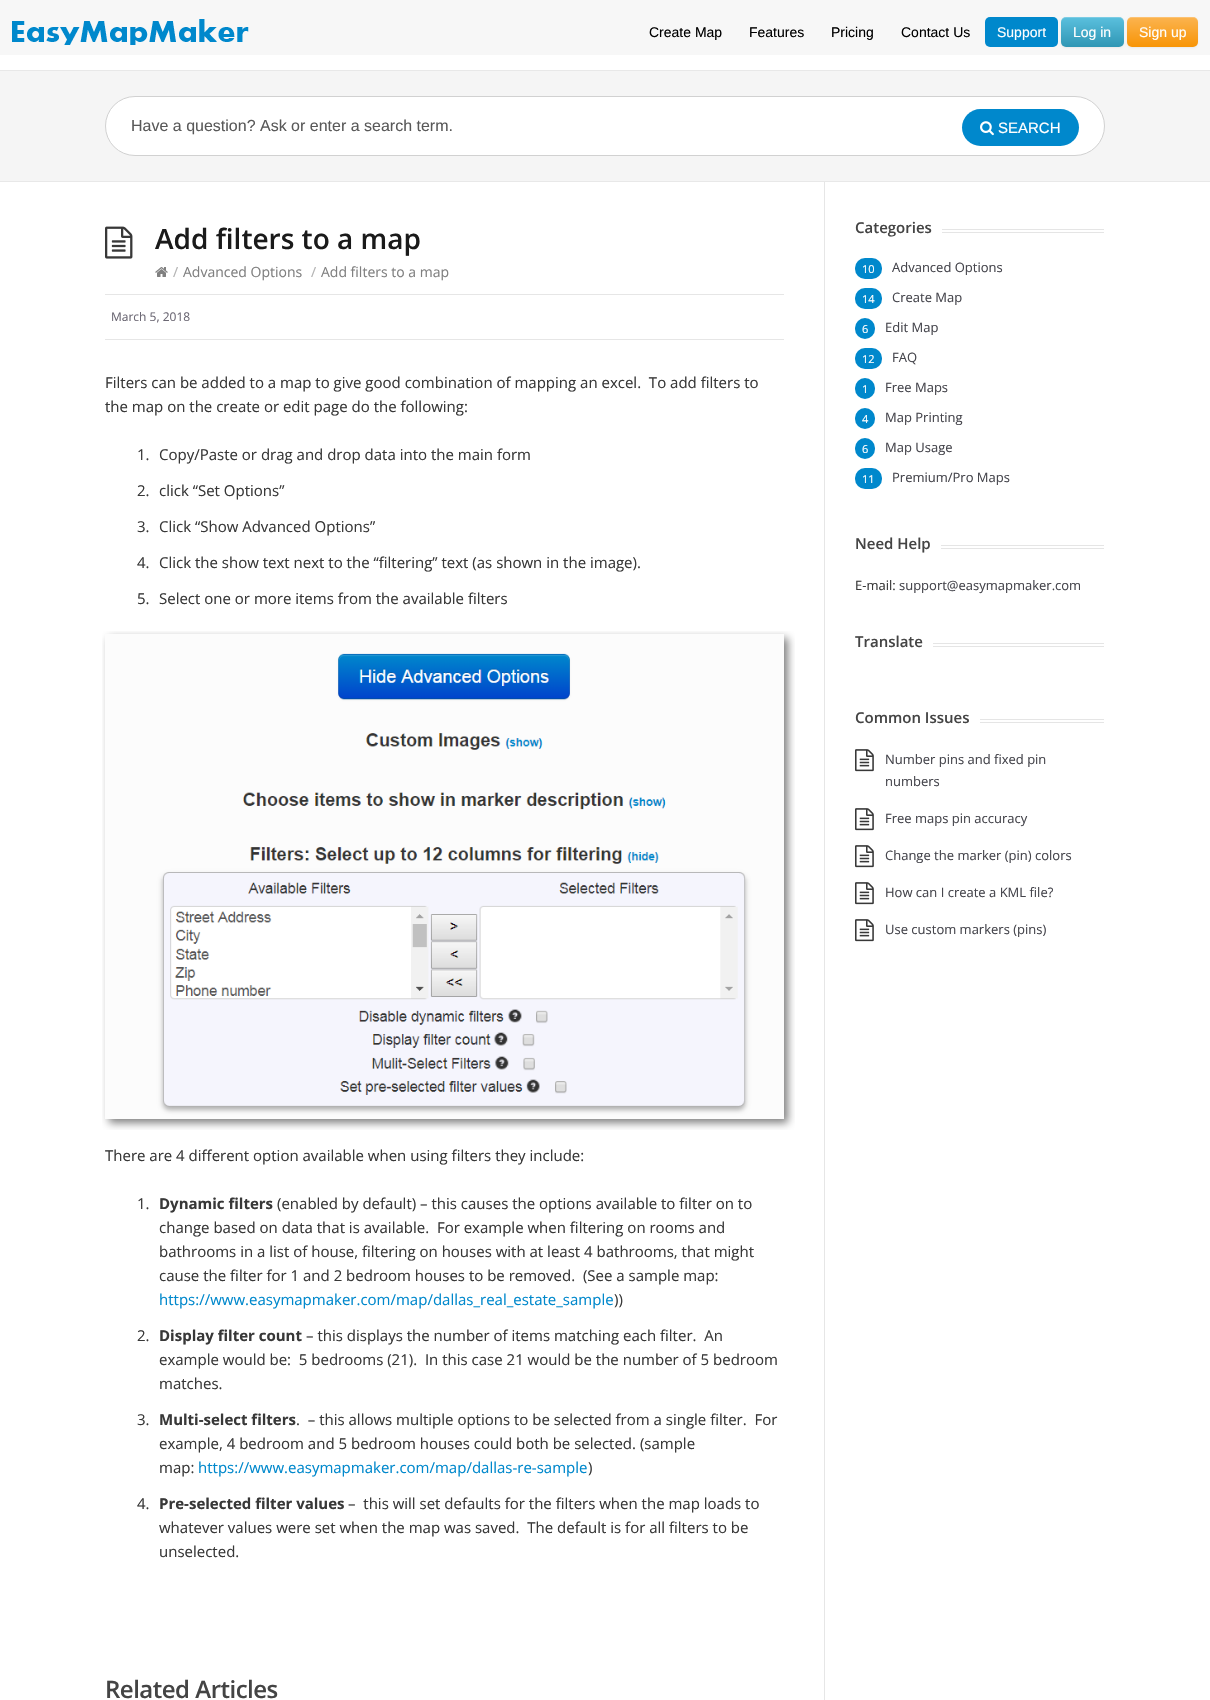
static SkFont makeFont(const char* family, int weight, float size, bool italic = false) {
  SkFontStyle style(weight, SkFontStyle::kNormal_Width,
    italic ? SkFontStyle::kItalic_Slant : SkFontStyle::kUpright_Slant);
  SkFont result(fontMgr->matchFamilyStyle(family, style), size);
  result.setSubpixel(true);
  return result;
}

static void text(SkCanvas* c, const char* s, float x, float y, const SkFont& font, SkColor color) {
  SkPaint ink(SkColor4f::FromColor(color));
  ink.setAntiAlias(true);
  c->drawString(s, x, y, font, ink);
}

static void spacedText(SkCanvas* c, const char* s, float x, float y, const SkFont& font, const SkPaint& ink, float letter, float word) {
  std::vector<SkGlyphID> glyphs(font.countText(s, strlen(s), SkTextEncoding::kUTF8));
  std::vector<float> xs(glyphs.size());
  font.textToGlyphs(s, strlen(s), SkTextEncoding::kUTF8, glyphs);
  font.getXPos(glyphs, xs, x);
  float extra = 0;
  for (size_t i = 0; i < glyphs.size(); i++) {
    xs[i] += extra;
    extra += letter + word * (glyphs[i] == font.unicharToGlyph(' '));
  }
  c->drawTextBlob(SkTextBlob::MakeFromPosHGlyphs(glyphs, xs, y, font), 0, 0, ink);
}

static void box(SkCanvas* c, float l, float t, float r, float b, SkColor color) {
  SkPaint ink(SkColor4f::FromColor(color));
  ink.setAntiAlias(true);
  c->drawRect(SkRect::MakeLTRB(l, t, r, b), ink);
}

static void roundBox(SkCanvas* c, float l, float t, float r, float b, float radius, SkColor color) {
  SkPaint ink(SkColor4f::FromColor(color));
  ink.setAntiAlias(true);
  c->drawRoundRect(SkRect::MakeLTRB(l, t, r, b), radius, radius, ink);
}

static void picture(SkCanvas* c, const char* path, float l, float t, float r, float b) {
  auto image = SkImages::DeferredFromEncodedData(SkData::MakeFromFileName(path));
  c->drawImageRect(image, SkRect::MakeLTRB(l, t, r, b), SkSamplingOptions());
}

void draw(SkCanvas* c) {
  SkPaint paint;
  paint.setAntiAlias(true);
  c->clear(0xffffffff);
  box(c, 0, 0, 1210, 55, 0xfff7f7f7);
  picture(c, "img_01.png", 12, 19, 249, 45);
  SkFont face1 = makeFont("Liberation Sans", 400, 14);
  text(c, "Create Map", 649, 37, face1, 0xff000000);
  text(c, "Features", 749, 37, face1, 0xff000000);
  text(c, "Pricing", 831, 37, face1, 0xff000000);
  text(c, "Contact Us", 901, 37, face1, 0xff000000);
  roundBox(c, 985, 17, 1058, 47, 5, 0xff0088cc);
  text(c, "Support", 997, 37, face1, 0xffffffff);
  paint.setColor(0x0d000000);
  paint.setMaskFilter(SkMaskFilter::MakeBlur(kNormal_SkBlurStyle, 1));
  c->drawRoundRect(SkRect::MakeLTRB(1061, 18, 1124, 48), 5, 5, paint);
  paint.setMaskFilter(nullptr);
  {
    const SkColor colors[] = {0xff5bc0de, 0xff2f96b4};
    const float stops[] = {0, 1};
    const SkPoint ends[] = {{1093, 17}, {1093, 47}};
    paint.setShader(SkGradientShader::MakeLinear(ends, colors, stops, 2, SkTileMode::kClamp));
    paint.setAlpha(255);
  }
  c->drawRoundRect(SkRect::MakeLTRB(1061, 17, 1124, 47), 5, 5, paint);
  paint.setShader(nullptr);
  paint.setColor(0x33ffffff);
  c->drawPath(SkPathBuilder().moveTo(1066, 18).lineTo(1119, 18).cubicTo(1122, 18, 1124, 20, 1124, 23).cubicTo(1124, 15, 1116, 17, 1110, 17).lineTo(1075, 17).cubicTo(1069, 17, 1061, 15, 1061, 23).cubicTo(1061, 20, 1063, 18, 1066, 18).close().detach(), paint);
  text(c, "Log in", 1073, 37, face1, 0xffffffff);
  paint.setColor(0x0d000000);
  paint.setMaskFilter(SkMaskFilter::MakeBlur(kNormal_SkBlurStyle, 1));
  c->drawRoundRect(SkRect::MakeLTRB(1127, 18, 1198, 48), 5, 5, paint);
  paint.setMaskFilter(nullptr);
  {
    const SkColor colors[] = {0xfffbb450, 0xfff89406};
    const float stops[] = {0, 1};
    const SkPoint ends[] = {{1163, 17}, {1163, 47}};
    paint.setShader(SkGradientShader::MakeLinear(ends, colors, stops, 2, SkTileMode::kClamp));
    paint.setAlpha(255);
  }
  c->drawRoundRect(SkRect::MakeLTRB(1127, 17, 1198, 47), 5, 5, paint);
  paint.setShader(nullptr);
  paint.setColor(0x33ffffff);
  c->drawPath(SkPathBuilder().moveTo(1132, 18).lineTo(1193, 18).cubicTo(1196, 18, 1198, 20, 1198, 23).cubicTo(1198, 15, 1189, 17, 1183, 17).lineTo(1142, 17).cubicTo(1136, 17, 1127, 15, 1127, 23).cubicTo(1127, 20, 1129, 18, 1132, 18).close().detach(), paint);
  text(c, "Sign up", 1139, 37, face1, 0xffffffff);
  box(c, 0, 71, 1210, 181, 0xfff5f5f5);
  box(c, 0, 70, 1210, 71, 0xffe8e8e8);
  box(c, 0, 181, 1210, 182, 0xffe8e8e8);
  paint.setColor(0xffffffff);
  c->drawRoundRect(SkRect::MakeLTRB(105.5f, 96.5f, 1104.5f, 155.5f), 29.5f, 29.5f, paint);
  paint.setStyle(SkPaint::kStroke_Style);
  paint.setStrokeWidth(1);
  paint.setColor(0xffd1d1d1);
  c->drawRoundRect(SkRect::MakeLTRB(105.5f, 96.5f, 1104.5f, 155.5f), 29.5f, 29.5f, paint);
  SkFont face2 = makeFont("Liberation Sans", 400, 16);
  text(c, "Have a question? Ask or enter a search term.", 131, 131, face2, 0xff595959);
  roundBox(c, 962, 109, 1079, 146, 18.5f, 0xff0088cc);
  picture(c, "img_02.png", 980, 121, 994, 136);
  SkFont face3 = makeFont("Liberation Sans", 400, 15);
  text(c, "SEARCH", 998, 133, face3, 0xffffffff);
  box(c, 824, 182, 825, 1700, 0xffe6e6e6);
  box(c, 105, 294, 784, 295, 0xffe6e6e6);
  picture(c, "img_03.png", 105, 226, 133, 259);
  SkFont face4 = makeFont("Open Sans", 600, 28);
  text(c, "Add filters to a map", 155, 249, face4, 0xff1a1a1a);
  picture(c, "img_04.png", 155, 267, 168, 277);
  SkFont face5 = makeFont("Open Sans", 400, 14);
  text(c, "/", 173, 277, face5, 0xffb3b3b3);
  text(c, "Advanced Options", 183, 277, face5, 0xff808080);
  text(c, "/", 311, 277, face5, 0xffb3b3b3);
  text(c, "Add filters to a map", 321, 277, face5, 0xff808080);
  box(c, 105, 339, 784, 340, 0xffe6e6e6);
  SkFont face6 = makeFont("Open Sans", 400, 12);
  text(c, "March 5, 2018", 111, 321, face6, 0xff6b6773);
  SkFont face7 = makeFont("Open Sans", 400, 15);
  text(c, "Filters can be added to a map to give good combination of mapping an excel.  To add filters to", 105, 388, face7, 0xff383838);
  text(c, "the map on the create or edit page do the following:", 105, 412, face7, 0xff383838);
  text(c, "1.", 137, 460, face7, 0xff383838);
  text(c, "Copy/Paste or drag and drop data into the main form", 159, 460, face7, 0xff383838);
  text(c, "2.", 137, 496, face7, 0xff383838);
  text(c, "click “Set Options”", 159, 496, face7, 0xff383838);
  text(c, "3.", 137, 532, face7, 0xff383838);
  text(c, "Click “Show Advanced Options”", 159, 532, face7, 0xff383838);
  text(c, "4.", 137, 568, face7, 0xff383838);
  text(c, "Click the show text next to the “filtering” text (as shown in the image).", 159, 568, face7, 0xff383838);
  text(c, "5.", 137, 604, face7, 0xff383838);
  text(c, "Select one or more items from the available filters", 159, 604, face7, 0xff383838);
  picture(c, "img_05.png", 102, 631, 795, 1130);
  text(c, "There are 4 different option available when using filters they include:", 105, 1161, face7, 0xff383838);
  text(c, "1.", 137, 1209, face7, 0xff383838);
  SkFont face8 = makeFont("Open Sans", 700, 15);
  text(c, "Dynamic filters", 159, 1209, face8, 0xff383838);
  text(c, "(enabled by default) – this causes the options available to filter on to", 277, 1209, face7, 0xff383838);
  text(c, "change based on data that is available.  For example when filtering on rooms and", 159, 1233, face7, 0xff383838);
  text(c, "bathrooms in a list of house, filtering on houses with at least 4 bathrooms, that might", 159, 1257, face7, 0xff383838);
  text(c, "cause the filter for 1 and 2 bedroom houses to be removed.  (See a sample map:", 159, 1281, face7, 0xff383838);
  text(c, "https://www.easymapmaker.com/map/dallas_real_estate_sample", 159, 1305, face7, 0xff0088cc);
  text(c, "))", 614, 1305, face7, 0xff383838);
  text(c, "2.", 137, 1341, face7, 0xff383838);
  text(c, "Display filter count", 159, 1341, face8, 0xff383838);
  text(c, "– this displays the number of items matching each filter.  An", 306, 1341, face7, 0xff383838);
  text(c, "example would be:  5 bedrooms (21).  In this case 21 would be the number of 5 bedroom", 159, 1365, face7, 0xff383838);
  text(c, "matches.", 159, 1389, face7, 0xff383838);
  text(c, "3.", 137, 1425, face7, 0xff383838);
  text(c, "Multi-select filters", 159, 1425, face8, 0xff383838);
  text(c, ".  – this allows multiple options to be selected from a single filter.  For", 296, 1425, face7, 0xff383838);
  text(c, "example, 4 bedroom and 5 bedroom houses could both be selected. (sample", 159, 1449, face7, 0xff383838);
  text(c, "map:", 159, 1473, face7, 0xff383838);
  text(c, "https://www.easymapmaker.com/map/dallas-re-sample", 198, 1473, face7, 0xff0088cc);
  text(c, ")", 588, 1473, face7, 0xff383838);
  text(c, "4.", 137, 1509, face7, 0xff383838);
  text(c, "Pre-selected filter values", 159, 1509, face8, 0xff383838);
  text(c, "–  this will set defaults for the filters when the map loads to", 348, 1509, face7, 0xff383838);
  text(c, "whatever values were set when the map was saved.  The default is for all filters to be", 159, 1533, face7, 0xff383838);
  text(c, "unselected.", 159, 1557, face7, 0xff383838);
  SkFont face9 = makeFont("Open Sans", 600, 24);
  paint.setStyle(SkPaint::kFill_Style);
  paint.setColor(0xff444444);
  spacedText(c, "Related Articles", 105, 1698, face9, paint, -0.5f, 0);
  box(c, 942, 229, 1104, 230, 0xffe5e5e5);
  box(c, 942, 232, 1104, 233, 0xffe5e5e5);
  SkFont face10 = makeFont("Open Sans", 600, 15);
  text(c, "Categories", 855, 233, face10, 0xff444444);
  roundBox(c, 855, 258, 882, 279, 10, 0xff0088cc);
  SkFont face11 = makeFont("Open Sans", 400, 11);
  text(c, "10", 862, 273, face11, 0xffffffff);
  SkFont face12 = makeFont("Open Sans", 400, 13);
  text(c, "Advanced Options", 892, 272, face12, 0xff45454c);
  roundBox(c, 855, 288, 882, 309, 10, 0xff0088cc);
  text(c, "14", 862, 303, face11, 0xffffffff);
  text(c, "Create Map", 892, 302, face12, 0xff45454c);
  roundBox(c, 855, 318, 875, 339, 10, 0xff0088cc);
  text(c, "6", 862, 333, face11, 0xffffffff);
  text(c, "Edit Map", 885, 332, face12, 0xff45454c);
  roundBox(c, 855, 348, 882, 369, 10, 0xff0088cc);
  text(c, "12", 862, 363, face11, 0xffffffff);
  text(c, "FAQ", 892, 362, face12, 0xff45454c);
  roundBox(c, 855, 378, 875, 399, 10, 0xff0088cc);
  text(c, "1", 862, 393, face11, 0xffffffff);
  text(c, "Free Maps", 885, 392, face12, 0xff45454c);
  roundBox(c, 855, 408, 875, 429, 10, 0xff0088cc);
  text(c, "4", 862, 423, face11, 0xffffffff);
  text(c, "Map Printing", 885, 422, face12, 0xff45454c);
  roundBox(c, 855, 438, 875, 459, 10, 0xff0088cc);
  text(c, "6", 862, 453, face11, 0xffffffff);
  text(c, "Map Usage", 885, 452, face12, 0xff45454c);
  roundBox(c, 855, 468, 882, 489, 10, 0xff0088cc);
  text(c, "11", 862, 483, face11, 0xffffffff);
  text(c, "Premium/Pro Maps", 892, 482, face12, 0xff45454c);
  box(c, 941, 545, 1104, 546, 0xffe5e5e5);
  box(c, 941, 548, 1104, 549, 0xffe5e5e5);
  text(c, "Need Help", 855, 549, face10, 0xff444444);
  text(c, "E-mail:", 855, 590, face12, 0xff383838);
  text(c, "support@easymapmaker.com", 899, 590, face12, 0xff45454c);
  box(c, 933, 643, 1104, 644, 0xffe5e5e5);
  box(c, 933, 646, 1104, 647, 0xffe5e5e5);
  text(c, "Translate", 855, 647, face10, 0xff444444);
  box(c, 980, 719, 1104, 720, 0xffe5e5e5);
  box(c, 980, 722, 1104, 723, 0xffe5e5e5);
  text(c, "Common Issues", 855, 723, face10, 0xff444444);
  picture(c, "img_06.png", 855, 749, 874, 772);
  text(c, "Number pins and fixed pin", 885, 764, face12, 0xff45454c);
  text(c, "numbers", 885, 786, face12, 0xff45454c);
  picture(c, "img_06.png", 855, 808, 874, 831);
  text(c, "Free maps pin accuracy", 885, 823, face12, 0xff45454c);
  picture(c, "img_06.png", 855, 845, 874, 868);
  text(c, "Change the marker (pin) colors", 885, 860, face12, 0xff45454c);
  picture(c, "img_06.png", 855, 882, 874, 905);
  text(c, "How can I create a KML file?", 885, 897, face12, 0xff45454c);
  picture(c, "img_06.png", 855, 919, 874, 942);
  text(c, "Use custom markers (pins)", 885, 934, face12, 0xff45454c);
}
